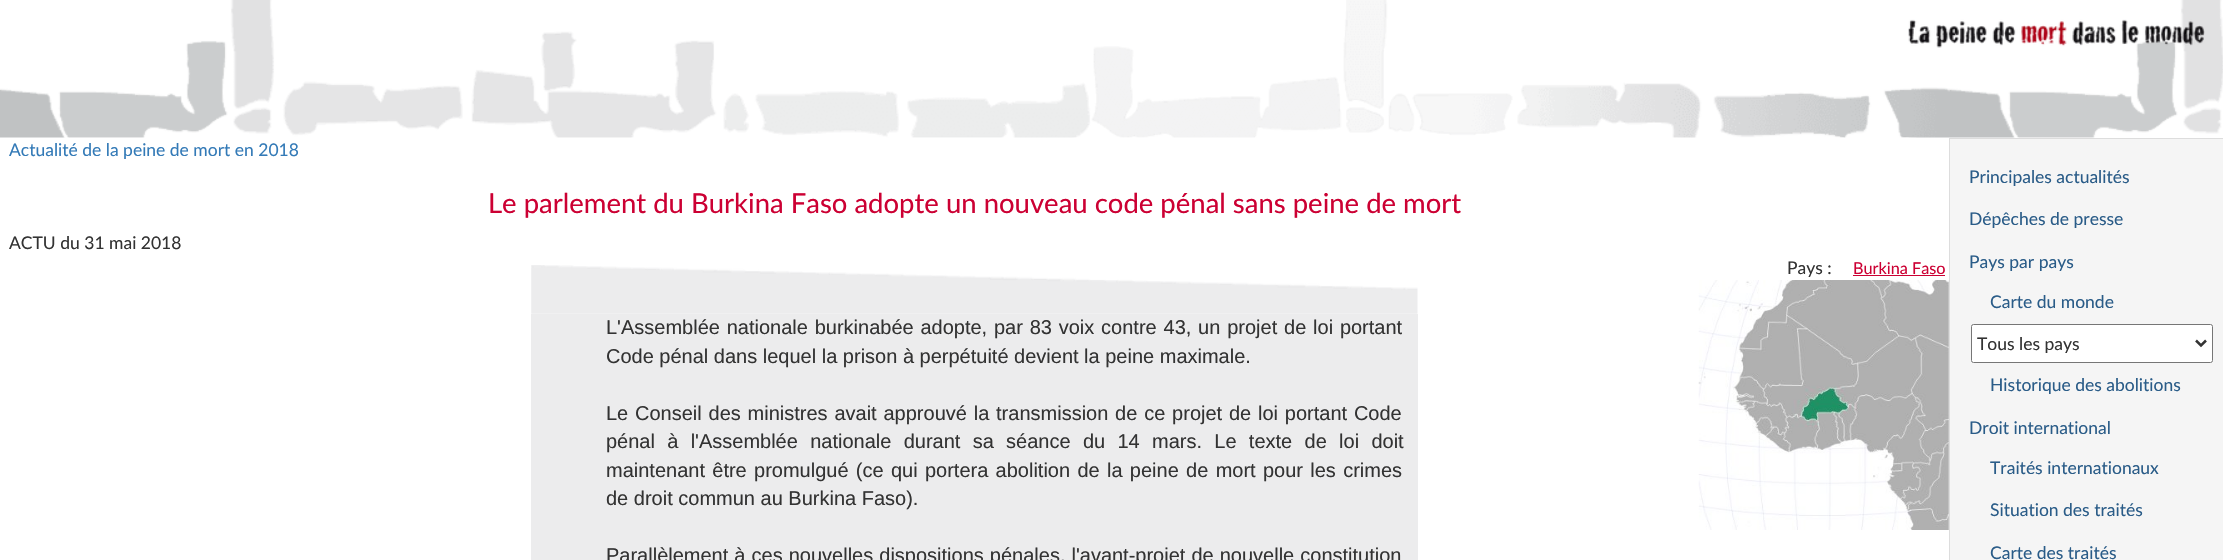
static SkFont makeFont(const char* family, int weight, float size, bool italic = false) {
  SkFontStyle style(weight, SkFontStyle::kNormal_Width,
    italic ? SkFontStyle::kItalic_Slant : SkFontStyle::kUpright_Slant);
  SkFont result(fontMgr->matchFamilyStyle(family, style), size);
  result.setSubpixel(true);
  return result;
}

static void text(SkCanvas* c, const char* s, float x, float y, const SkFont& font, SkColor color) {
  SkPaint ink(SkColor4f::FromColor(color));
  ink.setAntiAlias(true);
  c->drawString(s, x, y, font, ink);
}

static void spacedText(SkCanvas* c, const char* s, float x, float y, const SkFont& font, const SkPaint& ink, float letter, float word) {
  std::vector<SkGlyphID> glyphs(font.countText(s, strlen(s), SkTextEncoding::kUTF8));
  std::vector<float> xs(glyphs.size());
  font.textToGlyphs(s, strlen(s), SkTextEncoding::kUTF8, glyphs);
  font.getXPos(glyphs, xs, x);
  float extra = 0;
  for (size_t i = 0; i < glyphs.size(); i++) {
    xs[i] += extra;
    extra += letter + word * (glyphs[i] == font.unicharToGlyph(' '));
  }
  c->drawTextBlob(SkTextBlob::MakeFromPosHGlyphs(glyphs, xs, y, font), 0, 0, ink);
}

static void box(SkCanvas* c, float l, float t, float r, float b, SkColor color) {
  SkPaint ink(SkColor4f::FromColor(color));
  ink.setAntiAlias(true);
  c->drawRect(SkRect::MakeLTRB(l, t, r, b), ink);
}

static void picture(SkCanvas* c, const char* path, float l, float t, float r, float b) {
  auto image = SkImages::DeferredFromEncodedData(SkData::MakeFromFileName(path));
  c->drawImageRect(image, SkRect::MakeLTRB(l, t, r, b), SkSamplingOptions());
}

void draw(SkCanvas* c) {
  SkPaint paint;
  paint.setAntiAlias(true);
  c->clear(0xffffffff);
  picture(c, "img_01.png", 0, 0, 2223, 138);
  picture(c, "img_02.png", 1908, 19, 2205, 48);
  SkFont face1 = makeFont("Lato", 400, 17.5f);
  text(c, "Actualité de la peine de mort en 2018", 9, 156, face1, 0xff337ab7);
  SkFont face2 = makeFont("Lato", 400, 27.5f);
  text(c, "Le parlement du Burkina Faso adopte un nouveau code pénal sans peine de mort", 488, 213, face2, 0xffcc0033);
  text(c, "ACTU du 31 mai 2018", 9, 249, face1, 0xff333333);
  text(c, "Pays :", 1787, 274, face1, 0xff333333);
  SkFont face3 = makeFont("Lato", 400, 16.25f);
  text(c, "Burkina Faso", 1853, 274, face3, 0xffcc0033);
  box(c, 1853, 275, 1945, 276, 0xffcc0033);
  picture(c, "img_03.png", 1698, 280, 1949, 530);
  box(c, 531, 314, 1418, 560, 0xffececed);
  picture(c, "img_04.png", 531, 265, 1418, 314);
  SkFont face4 = makeFont("Liberation Sans", 400, 20);
  paint.setColor(0xff333333);
  spacedText(c, "L'Assemblée nationale burkinabée adopte, par 83 voix contre 43, un projet de loi portant", 606, 334, face4, paint, 0, 1.25f);
  text(c, "Code pénal dans lequel la prison à perpétuité devient la peine maximale.", 606, 363, face4, 0xff333333);
  spacedText(c, "Le Conseil des ministres avait approuvé la transmission de ce projet de loi portant Code", 606, 420, face4, paint, 0, 1.25f);
  spacedText(c, "pénal à l'Assemblée nationale durant sa séance du 14 mars. Le texte de loi doit", 606, 448, face4, paint, 0, 6.75f);
  spacedText(c, "maintenant être promulgué (ce qui portera abolition de la peine de mort pour les crimes", 606, 477, face4, paint, 0, 1.75f);
  text(c, "de droit commun au Burkina Faso).", 606, 505, face4, 0xff333333);
  spacedText(c, "Parallèlement à ces nouvelles dispositions pénales, l'avant-projet de nouvelle constitution", 606, 562, face4, paint, 0, 0.5f);
  box(c, 1950, 139, 2223, 560, 0xfff5f5f5);
  box(c, 1949, 138, 2223, 139, 0xffdddddd);
  box(c, 1949, 138, 1950, 560, 0xffdddddd);
  text(c, "Principales actualités", 1969, 183, face1, 0xff2a5c88);
  text(c, "Dépêches de presse", 1969, 225, face1, 0xff2a5c88);
  text(c, "Pays par pays", 1969, 268, face1, 0xff2a5c88);
  text(c, "Carte du monde", 1990, 308, face1, 0xff2a5c88);
  paint.setColor(0xffffffff);
  c->drawRoundRect(SkRect::MakeLTRB(1971.5f, 324.5f, 2212.5f, 362.5f), 2, 2, paint);
  paint.setStyle(SkPaint::kStroke_Style);
  paint.setStrokeWidth(1);
  paint.setColor(0xff767676);
  c->drawRoundRect(SkRect::MakeLTRB(1971.5f, 324.5f, 2212.5f, 362.5f), 2, 2, paint);
  paint.setStrokeWidth(2.5f);
  paint.setColor(0xff333333);
  c->drawPath(SkPathBuilder().moveTo(2196, 340.5f).lineTo(2201, 345.5f).lineTo(2206, 340.5f).detach(), paint);
  text(c, "Tous les pays", 1977, 350, face1, 0xff333333);
  text(c, "Historique des abolitions", 1990, 391, face1, 0xff2a5c88);
  text(c, "Droit international", 1969, 434, face1, 0xff2a5c88);
  text(c, "Traités internationaux", 1990, 474, face1, 0xff2a5c88);
  text(c, "Situation des traités", 1990, 516, face1, 0xff2a5c88);
  text(c, "Carte des traités", 1990, 559, face1, 0xff2a5c88);
}
